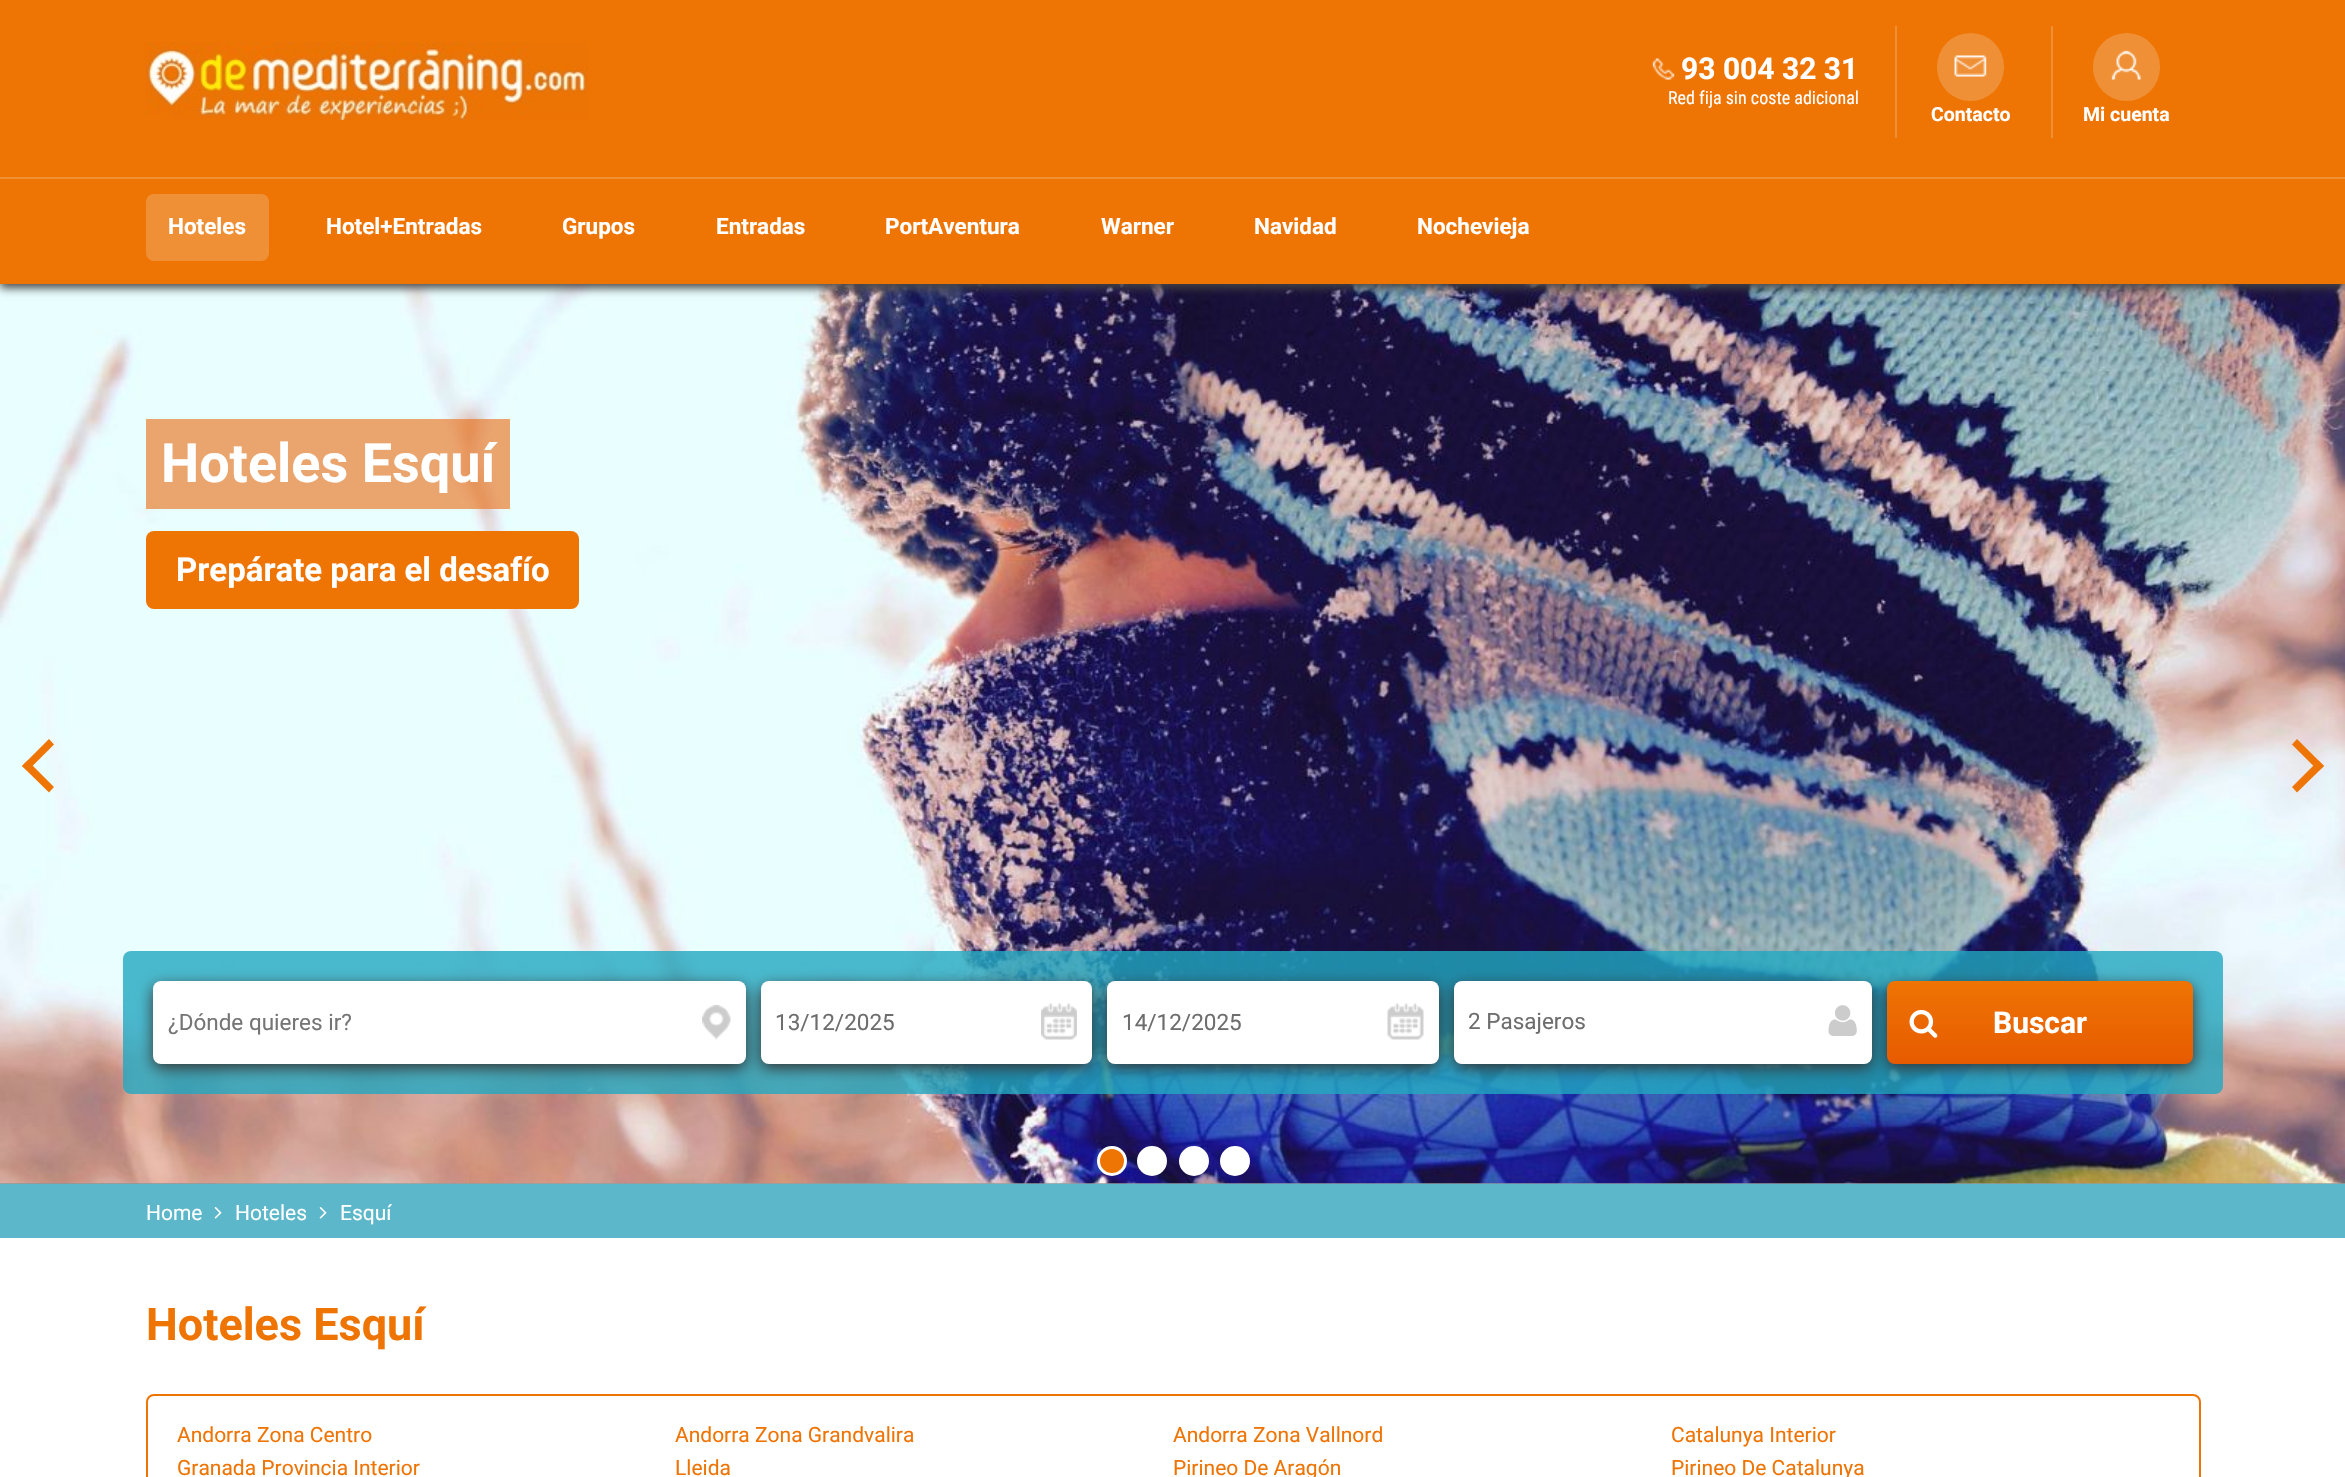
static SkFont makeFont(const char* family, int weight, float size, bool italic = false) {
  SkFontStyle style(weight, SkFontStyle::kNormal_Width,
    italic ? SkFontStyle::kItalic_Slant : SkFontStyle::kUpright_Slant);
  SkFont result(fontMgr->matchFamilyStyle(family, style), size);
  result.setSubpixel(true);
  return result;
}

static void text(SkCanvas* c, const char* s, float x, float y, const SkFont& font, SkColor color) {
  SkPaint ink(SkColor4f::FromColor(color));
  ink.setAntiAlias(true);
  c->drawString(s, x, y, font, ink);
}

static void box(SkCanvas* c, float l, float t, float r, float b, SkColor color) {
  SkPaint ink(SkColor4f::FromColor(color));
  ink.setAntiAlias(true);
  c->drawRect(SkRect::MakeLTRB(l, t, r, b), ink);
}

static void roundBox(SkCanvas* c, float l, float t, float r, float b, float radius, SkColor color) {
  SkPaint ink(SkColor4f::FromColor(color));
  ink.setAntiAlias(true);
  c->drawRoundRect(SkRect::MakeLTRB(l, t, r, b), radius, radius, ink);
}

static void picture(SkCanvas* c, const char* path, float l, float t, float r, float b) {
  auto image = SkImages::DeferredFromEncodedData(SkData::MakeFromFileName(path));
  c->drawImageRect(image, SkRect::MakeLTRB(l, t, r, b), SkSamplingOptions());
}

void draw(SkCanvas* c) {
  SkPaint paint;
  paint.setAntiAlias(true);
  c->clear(0xffffffff);
  picture(c, "img_05.png", 0, 1183, 2345, 1184);
  picture(c, "img_06.png", 0, 284, 2345, 1184);
  paint.setColor(0xff444444);
  paint.setMaskFilter(SkMaskFilter::MakeBlur(kNormal_SkBlurStyle, 4.5f));
  c->drawRect(SkRect::MakeLTRB(0, 5, 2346, 288), paint);
  paint.setMaskFilter(nullptr);
  box(c, 0, 0, 2345, 284, 0xffee7404);
  box(c, 0, 177, 2345, 179, 0xfff09036);
  picture(c, "img_01.png", 145, 42, 588, 120);
  picture(c, "img_02.png", 1652, 58, 1675, 80);
  SkFont face1 = makeFont("Roboto", 700, 30);
  text(c, "93 004 32 31", 1681, 79, face1, 0xffffffff);
  SkFont face2 = makeFont("Roboto Condensed", 400, 18);
  text(c, "Red fija sin coste adicional", 1668, 104, face2, 0xffffffff);
  box(c, 1895, 26, 1897, 138, 0xfff09036);
  roundBox(c, 1937, 33, 2004, 101, 33.5f, 0xfff09036);
  picture(c, "img_03.png", 1954, 55, 1987, 77);
  SkFont face3 = makeFont("Roboto", 700, 19.5f);
  text(c, "Contacto", 1931, 121, face3, 0xffffffff);
  box(c, 2051, 26, 2053, 138, 0xfff09036);
  roundBox(c, 2093, 33, 2160, 101, 33.5f, 0xfff09036);
  picture(c, "img_04.png", 2111, 50, 2141, 80);
  text(c, "Mi cuenta", 2083, 121, face3, 0xffffffff);
  roundBox(c, 146, 194, 269, 261, 8, 0xfff09036);
  SkFont face4 = makeFont("Roboto", 700, 22.5f);
  text(c, "Hoteles", 168, 234, face4, 0xffffffff);
  text(c, "Hotel+Entradas", 326, 234, face4, 0xffffffff);
  text(c, "Grupos", 562, 234, face4, 0xffffffff);
  text(c, "Entradas", 716, 234, face4, 0xffffffff);
  text(c, "PortAventura", 885, 234, face4, 0xffffffff);
  text(c, "Warner", 1101, 234, face4, 0xffffffff);
  text(c, "Navidad", 1254, 234, face4, 0xffffffff);
  text(c, "Nochevieja", 1417, 234, face4, 0xffffffff);
  box(c, 146, 419, 510, 509, 0xa6ea7421);
  SkFont face5 = makeFont("Roboto", 700, 54);
  text(c, "Hoteles Esquí", 161, 482, face5, 0xffffffff);
  roundBox(c, 146, 531, 579, 609, 8, 0xffee7404);
  SkFont face6 = makeFont("Roboto", 700, 33);
  text(c, "Prepárate para el desafío", 176, 581, face6, 0xffffffff);
  paint.setColor(0xffee7404);
  c->drawPath(SkPathBuilder().moveTo(22, 766).lineTo(49, 739).lineTo(54, 744.5f).lineTo(27.5f, 771).close().detach(), paint);
  c->drawPath(SkPathBuilder().moveTo(22, 766).lineTo(27.5f, 760.5f).lineTo(54, 787).lineTo(49, 792.5f).close().detach(), paint);
  c->drawPath(SkPathBuilder().moveTo(2324, 766).lineTo(2297, 792.5f).lineTo(2292, 787).lineTo(2318.5f, 760.5f).close().detach(), paint);
  c->drawPath(SkPathBuilder().moveTo(2324, 766).lineTo(2318.5f, 771).lineTo(2292, 744.5f).lineTo(2297, 739).close().detach(), paint);
  c->drawCircle(1112, 1161, 13.5f, paint);
  paint.setStyle(SkPaint::kStroke_Style);
  paint.setStrokeWidth(3);
  paint.setColor(0xffffffff);
  c->drawCircle(1112, 1161, 13.5f, paint);
  paint.setStyle(SkPaint::kFill_Style);
  c->drawCircle(1152, 1161, 13.5f, paint);
  paint.setStyle(SkPaint::kStroke_Style);
  c->drawCircle(1152, 1161, 13.5f, paint);
  paint.setStyle(SkPaint::kFill_Style);
  c->drawCircle(1194, 1161, 13.5f, paint);
  paint.setStyle(SkPaint::kStroke_Style);
  c->drawCircle(1194, 1161, 13.5f, paint);
  paint.setStyle(SkPaint::kFill_Style);
  c->drawCircle(1235, 1161, 13.5f, paint);
  paint.setStyle(SkPaint::kStroke_Style);
  c->drawCircle(1235, 1161, 13.5f, paint);
  roundBox(c, 123, 951, 2223, 1094, 8, 0xcc21a7c0);
  paint.setStyle(SkPaint::kFill_Style);
  paint.setColor(0xff333333);
  paint.setMaskFilter(SkMaskFilter::MakeBlur(kNormal_SkBlurStyle, 7.5f));
  c->drawRoundRect(SkRect::MakeLTRB(153, 986, 746, 1068), 8, 8, paint);
  paint.setMaskFilter(nullptr);
  roundBox(c, 153, 981, 746, 1064, 8, 0xffffffff);
  picture(c, "img_07.png", 702, 1005, 731, 1040);
  SkFont face7 = makeFont("Roboto", 400, 22.5f);
  text(c, "¿Dónde quieres ir?", 168, 1030, face7, 0xff757575);
  paint.setMaskFilter(SkMaskFilter::MakeBlur(kNormal_SkBlurStyle, 7.5f));
  c->drawRoundRect(SkRect::MakeLTRB(761, 986, 1092, 1068), 8, 8, paint);
  paint.setMaskFilter(nullptr);
  roundBox(c, 761, 981, 1092, 1064, 8, 0xffffffff);
  text(c, "13/12/2025", 775, 1030, face7, 0xff6d6d6d);
  picture(c, "img_08.png", 1041, 1003, 1077, 1040);
  paint.setMaskFilter(SkMaskFilter::MakeBlur(kNormal_SkBlurStyle, 7.5f));
  c->drawRoundRect(SkRect::MakeLTRB(1454, 986, 1872, 1068), 8, 8, paint);
  paint.setMaskFilter(nullptr);
  roundBox(c, 1454, 981, 1872, 1064, 8, 0xffffffff);
  paint.setMaskFilter(SkMaskFilter::MakeBlur(kNormal_SkBlurStyle, 7.5f));
  c->drawRoundRect(SkRect::MakeLTRB(1107, 986, 1439, 1068), 8, 8, paint);
  paint.setMaskFilter(nullptr);
  roundBox(c, 1107, 981, 1439, 1064, 8, 0xffffffff);
  text(c, "14/12/2025", 1122, 1030, face7, 0xff6d6d6d);
  picture(c, "img_09.png", 1387, 1003, 1424, 1040);
  text(c, "2 Pasajeros", 1468, 1029, face7, 0xff6d6d6d);
  picture(c, "img_10.png", 1828, 1005, 1857, 1036);
  paint.setMaskFilter(SkMaskFilter::MakeBlur(kNormal_SkBlurStyle, 7.5f));
  c->drawRoundRect(SkRect::MakeLTRB(1887, 986, 2193, 1068), 8, 8, paint);
  paint.setMaskFilter(nullptr);
  {
    const SkColor colors[] = {0xffee7404, 0xffe75b00};
    const float stops[] = {0, 1};
    const SkPoint ends[] = {{2040, 981}, {2040, 1064}};
    paint.setShader(SkGradientShader::MakeLinear(ends, colors, stops, 2, SkTileMode::kClamp));
    paint.setAlpha(255);
  }
  c->drawRoundRect(SkRect::MakeLTRB(1887, 981, 2193, 1064), 8, 8, paint);
  picture(c, "img_11.png", 1909, 1009, 1938, 1038);
  text(c, "Buscar", 1993, 1033, face1, 0xffffffff);
  box(c, 0, 1184, 2345, 1238, 0xff5bb7c9);
  SkFont face8 = makeFont("Roboto", 400, 21);
  text(c, "Home", 146, 1220, face8, 0xffffffff);
  picture(c, "img_12.png", 214, 1207, 222, 1219);
  text(c, "Hoteles", 235, 1220, face8, 0xffffffff);
  picture(c, "img_12.png", 319, 1207, 327, 1219);
  text(c, "Esquí", 340, 1220, face8, 0xffffffff);
  SkFont face9 = makeFont("Roboto", 700, 45);
  text(c, "Hoteles Esquí", 146, 1340, face9, 0xffee7404);
  paint.setStyle(SkPaint::kStroke_Style);
  paint.setStrokeWidth(2);
  paint.setShader(nullptr);
  paint.setColor(0xffee7404);
  c->drawRoundRect(SkRect::MakeLTRB(147, 1395, 2200, 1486), 7, 7, paint);
  text(c, "Andorra Zona Centro", 177, 1442, face8, 0xffee7404);
  text(c, "Andorra Zona Grandvalira", 675, 1442, face8, 0xffee7404);
  text(c, "Andorra Zona Vallnord", 1173, 1442, face8, 0xffee7404);
  text(c, "Catalunya Interior", 1671, 1442, face8, 0xffee7404);
  text(c, "Granada Provincia Interior", 177, 1475, face8, 0xffee7404);
  text(c, "Lleida", 675, 1475, face8, 0xffee7404);
  text(c, "Pirineo De Aragón", 1173, 1475, face8, 0xffee7404);
  text(c, "Pirineo De Catalunya", 1671, 1475, face8, 0xffee7404);
}
